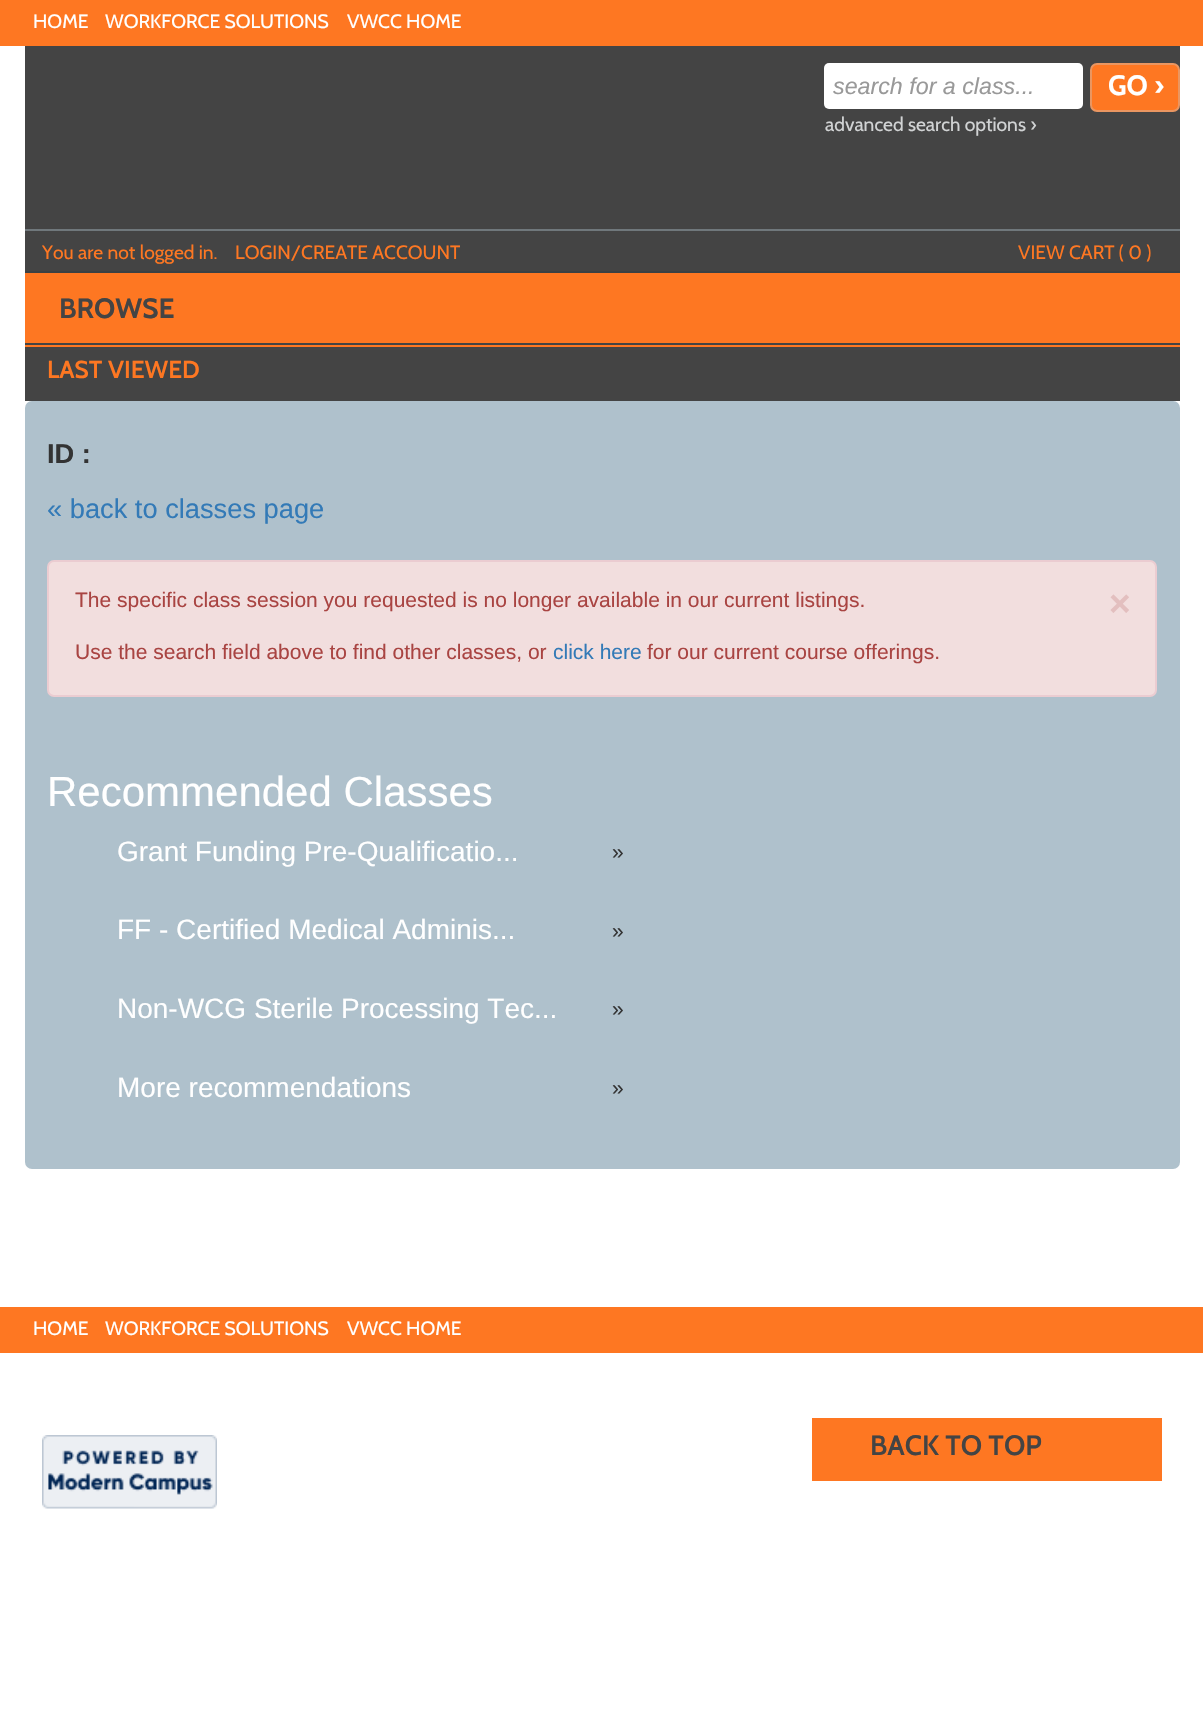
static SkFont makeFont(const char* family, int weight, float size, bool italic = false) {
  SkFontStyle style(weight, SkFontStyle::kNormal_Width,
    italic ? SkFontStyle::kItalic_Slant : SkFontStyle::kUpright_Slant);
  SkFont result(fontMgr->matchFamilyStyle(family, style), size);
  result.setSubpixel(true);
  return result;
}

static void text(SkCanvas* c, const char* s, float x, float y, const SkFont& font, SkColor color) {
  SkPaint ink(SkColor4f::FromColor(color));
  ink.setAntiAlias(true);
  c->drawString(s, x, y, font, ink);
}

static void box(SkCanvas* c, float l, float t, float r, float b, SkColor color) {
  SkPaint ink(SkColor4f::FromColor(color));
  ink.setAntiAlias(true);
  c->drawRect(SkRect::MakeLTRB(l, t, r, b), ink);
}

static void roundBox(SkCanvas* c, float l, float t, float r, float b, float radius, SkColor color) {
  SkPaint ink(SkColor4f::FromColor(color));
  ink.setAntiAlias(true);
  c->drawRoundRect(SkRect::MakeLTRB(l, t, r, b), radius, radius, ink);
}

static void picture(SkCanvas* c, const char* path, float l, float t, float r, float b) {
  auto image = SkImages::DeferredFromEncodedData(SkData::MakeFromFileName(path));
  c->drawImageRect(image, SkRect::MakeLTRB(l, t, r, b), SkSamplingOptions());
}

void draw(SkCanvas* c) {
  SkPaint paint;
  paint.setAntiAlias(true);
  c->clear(0xffffffff);
  box(c, 0, 0, 1203, 46, 0xfffe7722);
  SkFont face1 = makeFont("Cabin", 400, 19.25f);
  text(c, "HOME", 33, 28, face1, 0xffffffff);
  text(c, "WORKFORCE SOLUTIONS", 105, 28, face1, 0xffffffff);
  text(c, "VWCC HOME", 347, 28, face1, 0xffffffff);
  box(c, 25, 46, 1180, 271, 0xff444444);
  roundBox(c, 824, 63, 1083, 109, 5, 0xffffffff);
  SkFont face2 = makeFont("Liberation Sans", 400, 23.25f, true);
  text(c, "search for a class...", 833, 94, face2, 0xff999999);
  paint.setColor(0xfffe7722);
  c->drawRoundRect(SkRect::MakeLTRB(1091, 64, 1179, 111), 6, 6, paint);
  paint.setStyle(SkPaint::kStroke_Style);
  paint.setStrokeWidth(2);
  paint.setColor(0xffea9661);
  c->drawRoundRect(SkRect::MakeLTRB(1091, 64, 1179, 111), 6, 6, paint);
  SkFont face3 = makeFont("Cabin", 700, 28);
  text(c, "GO ›", 1108, 95, face3, 0xffffffff);
  text(c, "advanced search options ›", 825, 131, face1, 0xffd1d3d4);
  box(c, 25, 229, 1180, 231, 0xff70787c);
  box(c, 25, 271, 1180, 273, 0xff3b4144);
  text(c, "You are not logged in.", 42, 259, face1, 0xfffe7722);
  text(c, "LOGIN/CREATE ACCOUNT", 235, 259, face1, 0xfffe7722);
  text(c, "VIEW CART ( 0 )", 1018, 259, face1, 0xfffe7722);
  box(c, 25, 273, 1180, 343, 0xfffe7722);
  box(c, 25, 343, 1180, 345, 0xff444444);
  text(c, "BROWSE", 59, 318, face3, 0xff444444);
  box(c, 25, 347, 1180, 401, 0xff444444);
  box(c, 25, 345, 1180, 347, 0xfffe7722);
  SkFont face4 = makeFont("Cabin", 600, 24.5f);
  text(c, "LAST VIEWED", 47, 378, face4, 0xfffe7722);
  roundBox(c, 25, 401, 1180, 1169, 7, 0xffafc1cc);
  SkFont face5 = makeFont("Liberation Sans", 700, 27.25f);
  text(c, "ID :", 47, 463, face5, 0xff333333);
  SkFont face6 = makeFont("Liberation Sans", 400, 27.25f);
  text(c, "« back to classes page", 47, 518, face6, 0xff337ab7);
  paint.setStyle(SkPaint::kFill_Style);
  paint.setColor(0xfff2dede);
  c->drawRoundRect(SkRect::MakeLTRB(48, 561, 1156, 696), 6, 6, paint);
  paint.setStyle(SkPaint::kStroke_Style);
  paint.setColor(0xffebccd1);
  c->drawRoundRect(SkRect::MakeLTRB(48, 561, 1156, 696), 6, 6, paint);
  SkFont face7 = makeFont("Liberation Sans", 400, 21);
  text(c, "The specific class session you requested is no longer available in our current listings.", 75, 607, face7, 0xffa94442);
  SkFont face8 = makeFont("Liberation Sans", 700, 37);
  text(c, "×", 1109, 616, face8, 0xffe3bfbf);
  text(c, "Use the search field above to find other classes, or", 75, 659, face7, 0xffa94442);
  text(c, "click here", 553, 659, face7, 0xff337ab7);
  text(c, "for our current course offerings.", 647, 659, face7, 0xffa94442);
  SkFont face9 = makeFont("Liberation Sans", 400, 42);
  text(c, "Recommended Classes", 47, 806, face9, 0xffffffff);
  SkFont face10 = makeFont("Liberation Sans", 400, 28);
  text(c, "Grant Funding Pre-Qualificatio...", 117, 861, face10, 0xffffffff);
  text(c, "»", 612, 859, face7, 0xff333333);
  text(c, "FF - Certified Medical Adminis...", 117, 939, face10, 0xffffffff);
  text(c, "»", 612, 938, face7, 0xff333333);
  text(c, "Non-WCG Sterile Processing Tec...", 117, 1018, face10, 0xffffffff);
  text(c, "»", 612, 1016, face7, 0xff333333);
  text(c, "More recommendations", 117, 1097, face10, 0xffffffff);
  text(c, "»", 612, 1095, face7, 0xff333333);
  box(c, 0, 1307, 1203, 1353, 0xfffe7722);
  text(c, "HOME", 33, 1335, face1, 0xffffffff);
  text(c, "WORKFORCE SOLUTIONS", 105, 1335, face1, 0xffffffff);
  text(c, "VWCC HOME", 347, 1335, face1, 0xffffffff);
  picture(c, "img_01.png", 42, 1435, 217, 1509);
  box(c, 812, 1418, 1162, 1481, 0xfffe7722);
  SkFont face11 = makeFont("Cabin", 600, 28);
  text(c, "BACK TO TOP", 870, 1455, face11, 0xff444444);
}
